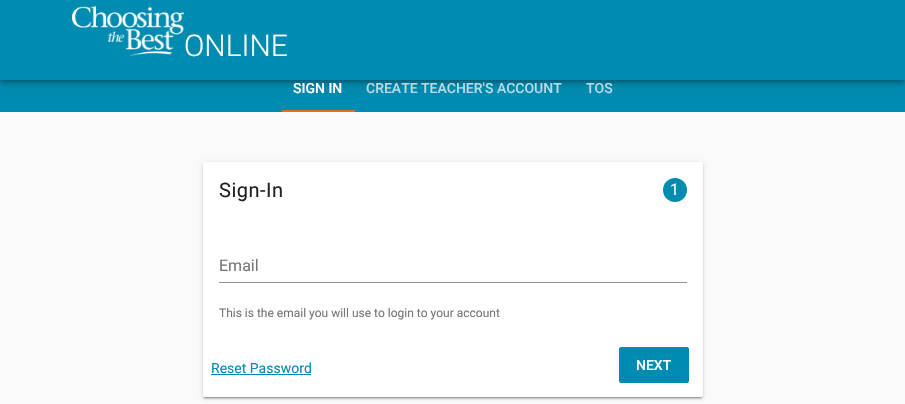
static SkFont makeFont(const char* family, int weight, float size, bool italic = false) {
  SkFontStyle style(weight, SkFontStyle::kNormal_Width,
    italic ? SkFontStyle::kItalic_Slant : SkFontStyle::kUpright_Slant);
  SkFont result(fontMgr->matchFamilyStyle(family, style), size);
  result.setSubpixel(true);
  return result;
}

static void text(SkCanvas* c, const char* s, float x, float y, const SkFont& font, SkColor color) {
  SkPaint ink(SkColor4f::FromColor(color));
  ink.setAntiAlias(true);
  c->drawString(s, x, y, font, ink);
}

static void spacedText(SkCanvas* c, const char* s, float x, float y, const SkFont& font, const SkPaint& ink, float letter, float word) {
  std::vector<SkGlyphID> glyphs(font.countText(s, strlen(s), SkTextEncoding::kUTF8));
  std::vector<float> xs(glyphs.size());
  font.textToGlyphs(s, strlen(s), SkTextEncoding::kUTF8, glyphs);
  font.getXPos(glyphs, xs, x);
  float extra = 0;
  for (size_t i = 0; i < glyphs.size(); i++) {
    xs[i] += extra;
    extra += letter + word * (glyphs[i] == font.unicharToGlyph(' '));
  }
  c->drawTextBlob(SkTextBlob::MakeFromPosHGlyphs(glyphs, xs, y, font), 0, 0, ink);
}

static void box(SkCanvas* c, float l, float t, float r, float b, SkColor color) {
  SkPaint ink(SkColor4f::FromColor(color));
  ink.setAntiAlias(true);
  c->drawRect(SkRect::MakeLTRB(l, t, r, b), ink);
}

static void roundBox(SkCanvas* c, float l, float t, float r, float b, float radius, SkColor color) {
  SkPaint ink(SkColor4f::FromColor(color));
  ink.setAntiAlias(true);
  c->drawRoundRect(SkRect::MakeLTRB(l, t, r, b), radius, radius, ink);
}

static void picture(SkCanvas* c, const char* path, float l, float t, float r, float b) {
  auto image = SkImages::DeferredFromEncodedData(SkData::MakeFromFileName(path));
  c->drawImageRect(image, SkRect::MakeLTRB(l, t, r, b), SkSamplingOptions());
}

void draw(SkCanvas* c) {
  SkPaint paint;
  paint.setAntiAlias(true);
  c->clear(0xfffafafa);
  box(c, 0, 80, 905, 112, 0xff008bb0);
  paint.setColor(0x1f000000);
  paint.setMaskFilter(SkMaskFilter::MakeBlur(kNormal_SkBlurStyle, 5));
  c->drawRect(SkRect::MakeLTRB(0, 1, 905, 81), paint);
  paint.setMaskFilter(nullptr);
  paint.setColor(0x24000000);
  paint.setMaskFilter(SkMaskFilter::MakeBlur(kNormal_SkBlurStyle, 2.5f));
  c->drawRect(SkRect::MakeLTRB(0, 4, 905, 84), paint);
  paint.setMaskFilter(nullptr);
  paint.setColor(0x33000000);
  paint.setMaskFilter(SkMaskFilter::MakeBlur(kNormal_SkBlurStyle, 2));
  c->drawRect(SkRect::MakeLTRB(1, 3, 904, 81), paint);
  paint.setMaskFilter(nullptr);
  box(c, 0, 0, 905, 80, 0xff008bb0);
  picture(c, "img_01.png", 72, 6, 184, 56);
  SkFont face1 = makeFont("Roboto", 300, 30);
  text(c, "ONLINE", 184, 56, face1, 0xffffffff);
  SkFont face2 = makeFont("Roboto", 500, 14);
  text(c, "SIGN IN", 293, 93, face2, 0xffffffff);
  text(c, "CREATE TEACHER'S ACCOUNT", 366, 93, face2, 0xffb3dce7);
  text(c, "TOS", 586, 93, face2, 0xffb3dce7);
  box(c, 282, 110, 355, 112, 0xffe36f1e);
  paint.setColor(0x1f000000);
  paint.setMaskFilter(SkMaskFilter::MakeBlur(kNormal_SkBlurStyle, 2.5f));
  c->drawRoundRect(SkRect::MakeLTRB(203, 163, 703, 398), 2, 2, paint);
  paint.setMaskFilter(nullptr);
  paint.setColor(0x24000000);
  paint.setMaskFilter(SkMaskFilter::MakeBlur(kNormal_SkBlurStyle, 1));
  c->drawRoundRect(SkRect::MakeLTRB(203, 164, 703, 399), 2, 2, paint);
  paint.setMaskFilter(nullptr);
  paint.setColor(0x33000000);
  paint.setMaskFilter(SkMaskFilter::MakeBlur(kNormal_SkBlurStyle, 0.5f));
  c->drawRect(SkRect::MakeLTRB(205, 167, 701, 398), paint);
  paint.setMaskFilter(nullptr);
  roundBox(c, 203, 162, 703, 397, 2, 0xffffffff);
  SkFont face3 = makeFont("Roboto", 400, 20);
  paint.setColor(0xff212121);
  spacedText(c, "Sign-In", 219, 197, face3, paint, 0.5f, 0);
  paint.setColor(0xff008bb0);
  c->drawCircle(675, 190, 12, paint);
  SkFont face4 = makeFont("Roboto", 400, 16);
  paint.setColor(0xffffffff);
  spacedText(c, "1", 670, 195, face4, paint, 0.5f, 0);
  text(c, "Email", 219, 271, face4, 0xff757575);
  box(c, 219, 282, 687, 283, 0xff949494);
  SkFont face5 = makeFont("Roboto", 400, 12);
  text(c, "This is the email you will use to login to your account", 219, 317, face5, 0xff757575);
  SkFont face6 = makeFont("Roboto", 400, 14);
  text(c, "Reset Password", 211, 373, face6, 0xff008bb0);
  box(c, 211, 374, 311, 375, 0xff008bb0);
  paint.setColor(0xff008bb0);
  c->drawRoundRect(SkRect::MakeLTRB(619.5f, 347.5f, 688.5f, 382.5f), 1.5f, 1.5f, paint);
  paint.setStyle(SkPaint::kStroke_Style);
  paint.setStrokeWidth(1);
  c->drawRoundRect(SkRect::MakeLTRB(619.5f, 347.5f, 688.5f, 382.5f), 1.5f, 1.5f, paint);
  text(c, "NEXT", 636, 370, face2, 0xffffffff);
}
